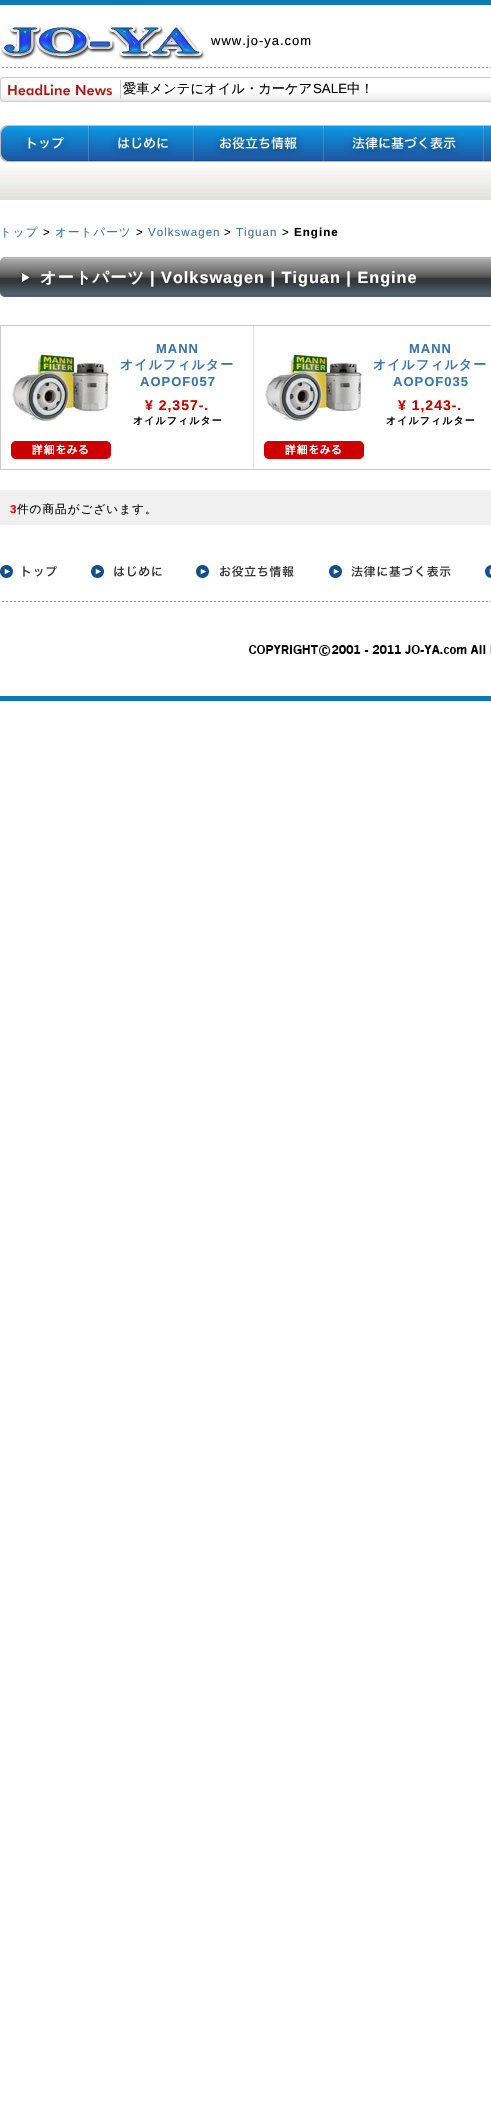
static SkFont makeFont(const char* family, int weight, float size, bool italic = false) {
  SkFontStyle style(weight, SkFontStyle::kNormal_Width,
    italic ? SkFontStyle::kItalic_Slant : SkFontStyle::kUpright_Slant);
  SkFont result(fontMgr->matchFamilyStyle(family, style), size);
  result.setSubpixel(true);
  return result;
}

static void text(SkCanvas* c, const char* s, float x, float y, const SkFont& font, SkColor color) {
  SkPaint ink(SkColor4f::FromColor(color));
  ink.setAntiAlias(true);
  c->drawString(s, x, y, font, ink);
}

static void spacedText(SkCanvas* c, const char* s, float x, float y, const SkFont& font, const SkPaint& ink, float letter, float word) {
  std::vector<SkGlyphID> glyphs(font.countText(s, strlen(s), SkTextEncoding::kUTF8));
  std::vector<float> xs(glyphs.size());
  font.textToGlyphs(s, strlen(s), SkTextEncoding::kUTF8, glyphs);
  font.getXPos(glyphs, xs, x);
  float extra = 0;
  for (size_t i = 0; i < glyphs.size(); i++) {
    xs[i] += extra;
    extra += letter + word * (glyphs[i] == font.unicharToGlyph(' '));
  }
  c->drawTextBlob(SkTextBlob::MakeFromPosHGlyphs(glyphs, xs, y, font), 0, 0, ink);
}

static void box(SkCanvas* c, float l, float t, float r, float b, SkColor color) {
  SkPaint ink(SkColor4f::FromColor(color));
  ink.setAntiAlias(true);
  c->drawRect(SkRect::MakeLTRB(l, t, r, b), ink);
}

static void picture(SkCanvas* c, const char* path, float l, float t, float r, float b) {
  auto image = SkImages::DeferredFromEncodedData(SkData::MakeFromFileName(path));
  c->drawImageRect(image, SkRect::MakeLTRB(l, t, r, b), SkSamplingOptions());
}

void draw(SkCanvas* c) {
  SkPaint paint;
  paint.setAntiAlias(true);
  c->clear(0xffffffff);
  picture(c, "img_01.png", 0, 168, 491, 200);
  box(c, 0, 0, 491, 5, 0xff0a79b7);
  picture(c, "img_02.png", 2, 67, 491, 68);
  picture(c, "img_03.png", 1, 25, 205, 60);
  SkFont face1 = makeFont("Liberation Sans", 400, 13);
  paint.setColor(0xff000000);
  spacedText(c, "www.jo-ya.com", 211, 45, face1, paint, 1, 0);
  picture(c, "img_04.png", 0, 77, 491, 102);
  picture(c, "img_05.png", 8, 84, 112, 96);
  SkFont face2 = makeFont("WenQuanYi Zen Hei", 500, 13.3f);
  text(c, "愛車メンテにオイル・カーケア", 123, 93, face2, 0xff000000);
  SkFont face3 = makeFont("Liberation Sans", 400, 13.3f);
  text(c, "SALE", 313, 93, face3, 0xff000000);
  text(c, "中！", 347, 93, face2, 0xff000000);
  picture(c, "img_06.png", 0, 125, 491, 162);
  picture(c, "img_07.png", 0, 125, 7, 162);
  SkFont face4 = makeFont("WenQuanYi Zen Hei", 500, 11.6f);
  paint.setColor(0xff3a75af);
  spacedText(c, "トップ", 0, 236, face4, paint, 1, 0);
  SkFont face5 = makeFont("Liberation Sans", 400, 11.6f);
  paint.setColor(0xff000000);
  spacedText(c, ">", 43, 236, face5, paint, 1, 0);
  paint.setColor(0xff3a75af);
  spacedText(c, "オートパーツ", 55, 236, face4, paint, 1, 0);
  paint.setColor(0xff000000);
  spacedText(c, ">", 136, 236, face5, paint, 1, 0);
  paint.setColor(0xff3a75af);
  spacedText(c, "Volkswagen", 148, 236, face5, paint, 1, 0);
  paint.setColor(0xff000000);
  spacedText(c, ">", 224, 236, face5, paint, 1, 0);
  paint.setColor(0xff3a75af);
  spacedText(c, "Tiguan", 236, 236, face5, paint, 1, 0);
  paint.setColor(0xff000000);
  spacedText(c, ">", 282, 236, face5, paint, 1, 0);
  SkFont face6 = makeFont("Liberation Sans", 700, 11.6f);
  spacedText(c, "Engine", 294, 236, face6, paint, 1, 0);
  picture(c, "img_08.png", 0, 257, 491, 297);
  SkFont face7 = makeFont("WenQuanYi Zen Hei", 700, 16.25f);
  paint.setColor(0xffffffff);
  spacedText(c, "オートパーツ", 40, 283, face7, paint, 1, 0);
  SkFont face8 = makeFont("Liberation Sans", 700, 16.25f);
  spacedText(c, "| Volkswagen | Tiguan | Engine", 150, 283, face8, paint, 1, 0);
  box(c, 253, 325, 254, 470, 0xffe5e5e5);
  paint.setStyle(SkPaint::kStroke_Style);
  paint.setStrokeWidth(1);
  paint.setColor(0xffcccccc);
  c->drawRect(SkRect::MakeLTRB(0.5f, 325.5f, 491.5f, 469.5f), paint);
  picture(c, "img_09.png", 11, 352, 110, 424);
  picture(c, "img_10.png", 11, 441, 111, 459);
  SkFont face9 = makeFont("Liberation Sans", 700, 13);
  paint.setStyle(SkPaint::kFill_Style);
  paint.setColor(0xff3a75af);
  spacedText(c, "MANN", 156, 353, face9, paint, 1, 0);
  SkFont face10 = makeFont("WenQuanYi Zen Hei", 700, 13);
  spacedText(c, "オイルフィルター", 120, 369, face10, paint, 1, 0);
  spacedText(c, "AOPOF057", 140, 386, face9, paint, 1, 0);
  SkFont face11 = makeFont("Liberation Sans", 700, 14);
  paint.setColor(0xffcc0000);
  spacedText(c, "¥ 2,357-.", 145, 410, face11, paint, 1, 0);
  SkFont face12 = makeFont("WenQuanYi Zen Hei", 700, 10);
  paint.setColor(0xff000000);
  spacedText(c, "オイルフィルター", 133, 424, face12, paint, 1, 0);
  picture(c, "img_09.png", 264, 352, 363, 424);
  picture(c, "img_10.png", 264, 441, 364, 459);
  paint.setColor(0xff3a75af);
  spacedText(c, "MANN", 409, 353, face9, paint, 1, 0);
  spacedText(c, "オイルフィルター", 373, 369, face10, paint, 1, 0);
  spacedText(c, "AOPOF035", 393, 386, face9, paint, 1, 0);
  paint.setColor(0xffcc0000);
  spacedText(c, "¥ 1,243-.", 398, 410, face11, paint, 1, 0);
  paint.setColor(0xff000000);
  spacedText(c, "オイルフィルター", 386, 424, face12, paint, 1, 0);
  box(c, 0, 490, 491, 525, 0xfff0f0f0);
  paint.setColor(0xffff0000);
  spacedText(c, "3", 10, 513, face6, paint, 1, 0);
  paint.setColor(0xff000000);
  spacedText(c, "件の商品がございます。", 17, 513, face4, paint, 1, 0);
  picture(c, "img_02.png", 2, 601, 491, 602);
  picture(c, "img_11.png", 0, 565, 57, 578);
  picture(c, "img_12.png", 91, 565, 162, 578);
  picture(c, "img_13.png", 196, 565, 294, 578);
  picture(c, "img_14.png", 329, 565, 451, 578);
  picture(c, "img_15.png", 485, 565, 491, 578);
  picture(c, "img_16.png", 249, 645, 491, 656);
  box(c, 0, 696, 491, 701, 0xff0a79b7);
}
